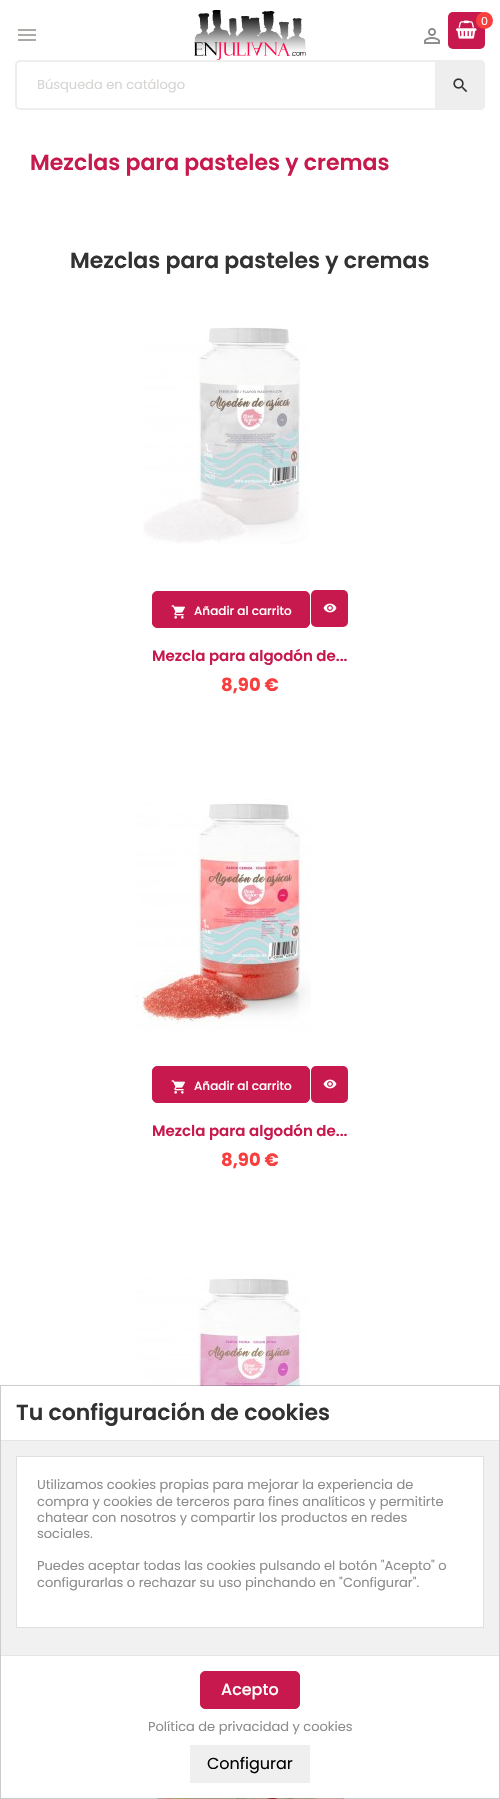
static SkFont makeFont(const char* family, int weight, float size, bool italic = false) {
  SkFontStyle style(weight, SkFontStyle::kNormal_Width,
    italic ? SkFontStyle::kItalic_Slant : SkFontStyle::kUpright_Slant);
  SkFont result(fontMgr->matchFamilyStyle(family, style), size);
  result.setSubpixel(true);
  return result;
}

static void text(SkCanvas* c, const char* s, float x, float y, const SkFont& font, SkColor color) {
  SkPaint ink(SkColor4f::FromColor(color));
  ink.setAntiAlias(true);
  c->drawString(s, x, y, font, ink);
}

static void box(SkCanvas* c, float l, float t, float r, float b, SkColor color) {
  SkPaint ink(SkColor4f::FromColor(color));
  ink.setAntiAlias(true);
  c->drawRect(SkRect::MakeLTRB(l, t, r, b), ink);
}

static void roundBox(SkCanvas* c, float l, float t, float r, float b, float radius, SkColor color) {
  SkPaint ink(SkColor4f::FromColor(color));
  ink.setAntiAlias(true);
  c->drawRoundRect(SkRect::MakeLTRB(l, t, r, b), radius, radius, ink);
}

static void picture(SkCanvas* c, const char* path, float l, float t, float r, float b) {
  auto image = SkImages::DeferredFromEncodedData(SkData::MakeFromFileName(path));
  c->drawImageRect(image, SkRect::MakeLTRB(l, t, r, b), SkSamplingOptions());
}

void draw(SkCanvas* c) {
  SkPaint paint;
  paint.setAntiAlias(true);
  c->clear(0xffffffff);
  picture(c, "img_01.png", 194, 10, 306, 60);
  roundBox(c, 448, 12, 485, 49, 5, 0xffc7194d);
  picture(c, "img_02.png", 456, 20, 477, 39);
  paint.setColor(0xfff93e3e);
  c->drawCircle(484.5f, 20.5f, 8.5f, paint);
  SkFont face1 = makeFont("Poppins", 400, 11);
  text(c, "0", 481, 25, face1, 0xffffffff);
  picture(c, "img_03.png", 18, 29, 36, 41);
  picture(c, "img_04.png", 424, 28, 440, 44);
  paint.setStyle(SkPaint::kStroke_Style);
  paint.setStrokeWidth(2);
  paint.setColor(0xffeeeeee);
  c->drawRoundRect(SkRect::MakeLTRB(16, 61, 484, 109), 4, 4, paint);
  SkFont face2 = makeFont("Poppins", 400, 13);
  text(c, "Búsqueda en catálogo", 37, 89, face2, 0xffd6d5d3);
  paint.setStyle(SkPaint::kFill_Style);
  c->drawPath(SkPathBuilder().moveTo(435, 60).lineTo(480, 60).cubicTo(483, 60, 485, 62, 485, 65).lineTo(485, 105).cubicTo(485, 108, 483, 110, 480, 110).lineTo(435, 110).close().detach(), paint);
  picture(c, "img_05.png", 453, 78, 468, 93);
  SkFont face3 = makeFont("Poppins", 600, 22);
  text(c, "Mezclas para pasteles y cremas", 30, 170, face3, 0xffc7194d);
  text(c, "Mezclas para pasteles y cremas", 70, 268, face3, 0xff323232);
  picture(c, "img_06.png", 143, 327, 309, 544);
  paint.setColor(0xffc7194d);
  c->drawRoundRect(SkRect::MakeLTRB(152.5f, 591.5f, 309.5f, 627.5f), 4.5f, 4.5f, paint);
  paint.setStyle(SkPaint::kStroke_Style);
  paint.setStrokeWidth(1);
  c->drawRoundRect(SkRect::MakeLTRB(152.5f, 591.5f, 309.5f, 627.5f), 4.5f, 4.5f, paint);
  picture(c, "img_07.png", 171, 605, 185, 619);
  SkFont face4 = makeFont("Poppins", 500, 12);
  text(c, "Añadir al carrito", 194, 615, face4, 0xffffffff);
  roundBox(c, 311, 590, 348, 627, 5, 0xffc7194d);
  picture(c, "img_08.png", 323, 603, 337, 613);
  SkFont face5 = makeFont("Poppins", 600, 15);
  text(c, "Mezcla para algodón de...", 152, 661, face5, 0xffc7194d);
  SkFont face6 = makeFont("Poppins", 700, 18);
  text(c, "8,90 €", 221, 691, face6, 0xfff93e3e);
  picture(c, "img_09.png", 134, 799, 311, 1030);
  paint.setStyle(SkPaint::kFill_Style);
  c->drawRoundRect(SkRect::MakeLTRB(152.5f, 1066.5f, 309.5f, 1102.5f), 4.5f, 4.5f, paint);
  paint.setStyle(SkPaint::kStroke_Style);
  c->drawRoundRect(SkRect::MakeLTRB(152.5f, 1066.5f, 309.5f, 1102.5f), 4.5f, 4.5f, paint);
  picture(c, "img_07.png", 171, 1080, 185, 1094);
  text(c, "Añadir al carrito", 194, 1090, face4, 0xffffffff);
  roundBox(c, 311, 1066, 348, 1103, 5, 0xffc7194d);
  picture(c, "img_08.png", 323, 1079, 337, 1089);
  text(c, "Mezcla para algodón de...", 152, 1136, face5, 0xffc7194d);
  text(c, "8,90 €", 221, 1166, face6, 0xfff93e3e);
  picture(c, "img_10.png", 134, 1274, 309, 1386);
  picture(c, "img_11.png", 157, 1798, 345, 1799);
  paint.setColor(0x33000000);
  c->drawRect(SkRect::MakeLTRB(0.5f, 1385.5f, 499.5f, 1798.5f), paint);
  box(c, 1, 1440, 499, 1441, 0xffe5e5e5);
  text(c, "Tu configuración de cookies", 16, 1420, face3, 0xff323232);
  box(c, 1, 1441, 499, 1655, 0xfff1f1f1);
  paint.setStyle(SkPaint::kFill_Style);
  paint.setColor(0xffffffff);
  c->drawRect(SkRect::MakeLTRB(16.5f, 1456.5f, 483.5f, 1627.5f), paint);
  paint.setStyle(SkPaint::kStroke_Style);
  paint.setColor(0xffdfdfdf);
  c->drawRect(SkRect::MakeLTRB(16.5f, 1456.5f, 483.5f, 1627.5f), paint);
  text(c, "Utilizamos cookies propias para mejorar la experiencia de", 37, 1489, face2, 0xff8c8c8c);
  text(c, "compra y cookies de terceros para fines analíticos y permitirte", 37, 1506, face2, 0xff8c8c8c);
  text(c, "chatear con nosotros y compartir los productos en redes", 37, 1522, face2, 0xff8c8c8c);
  text(c, "sociales.", 37, 1538, face2, 0xff8c8c8c);
  text(c, "Puedes aceptar todas las cookies pulsando el botón \"Acepto\" o", 37, 1570, face2, 0xff8c8c8c);
  text(c, "configurarlas o rechazar su uso pinchando en \"Configurar\".", 37, 1587, face2, 0xff8c8c8c);
  box(c, 1, 1655, 499, 1656, 0xffe5e5e5);
  paint.setStyle(SkPaint::kFill_Style);
  paint.setColor(0xffc7194d);
  c->drawRoundRect(SkRect::MakeLTRB(200.5f, 1671.5f, 299.5f, 1708.5f), 4.5f, 4.5f, paint);
  paint.setStyle(SkPaint::kStroke_Style);
  c->drawRoundRect(SkRect::MakeLTRB(200.5f, 1671.5f, 299.5f, 1708.5f), 4.5f, 4.5f, paint);
  SkFont face7 = makeFont("Poppins", 500, 16);
  text(c, "Acepto", 221, 1695, face7, 0xffffffff);
  text(c, "Política de privacidad y cookies", 148, 1731, face2, 0xff8c8c8c);
  box(c, 190, 1745, 310, 1783, 0xffefefef);
  SkFont face8 = makeFont("Poppins", 400, 16);
  text(c, "Configurar", 207, 1769, face8, 0xff000000);
}
